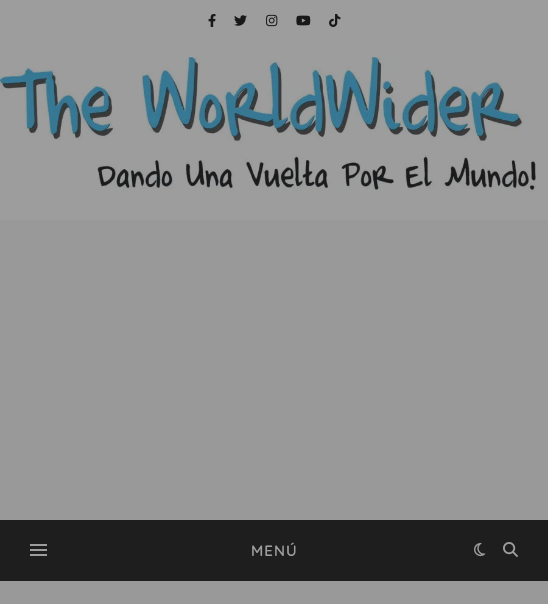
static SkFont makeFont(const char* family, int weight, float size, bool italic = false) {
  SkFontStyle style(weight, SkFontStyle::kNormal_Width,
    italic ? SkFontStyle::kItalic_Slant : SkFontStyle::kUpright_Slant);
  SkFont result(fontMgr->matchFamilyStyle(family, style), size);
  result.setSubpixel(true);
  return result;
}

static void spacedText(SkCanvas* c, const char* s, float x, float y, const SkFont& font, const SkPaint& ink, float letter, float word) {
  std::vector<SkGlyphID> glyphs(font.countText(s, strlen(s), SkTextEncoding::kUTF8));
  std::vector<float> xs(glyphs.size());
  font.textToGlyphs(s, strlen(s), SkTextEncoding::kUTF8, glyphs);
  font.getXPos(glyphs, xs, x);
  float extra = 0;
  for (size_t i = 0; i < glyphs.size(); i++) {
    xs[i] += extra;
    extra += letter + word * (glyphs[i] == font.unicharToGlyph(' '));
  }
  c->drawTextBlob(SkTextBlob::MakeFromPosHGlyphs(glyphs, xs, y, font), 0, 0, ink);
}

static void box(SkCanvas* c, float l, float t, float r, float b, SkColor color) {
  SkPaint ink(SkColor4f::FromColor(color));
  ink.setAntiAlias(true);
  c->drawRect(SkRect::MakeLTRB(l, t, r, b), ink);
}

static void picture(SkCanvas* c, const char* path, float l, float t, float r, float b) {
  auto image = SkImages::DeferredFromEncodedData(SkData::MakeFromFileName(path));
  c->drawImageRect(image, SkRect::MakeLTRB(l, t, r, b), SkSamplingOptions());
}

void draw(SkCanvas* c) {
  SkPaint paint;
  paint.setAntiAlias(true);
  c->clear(0xff999999);
  box(c, 0, 0, 548, 220, 0xff9d9d9d);
  picture(c, "img_01.png", 208, 14, 216, 27);
  picture(c, "img_02.png", 234, 15, 247, 26);
  picture(c, "img_03.png", 266, 14, 278, 27);
  picture(c, "img_04.png", 296, 15, 311, 26);
  picture(c, "img_05.png", 329, 14, 341, 27);
  picture(c, "img_06.png", 0, 57, 536, 194);
  box(c, 0, 520, 548, 581, 0xff1e1e1e);
  box(c, 30, 544, 47, 546, 0xff9d9d9d);
  box(c, 30, 549, 47, 551, 0xff9d9d9d);
  box(c, 30, 554, 47, 556, 0xff9d9d9d);
  SkFont face1 = makeFont("Quicksand", 600, 15);
  paint.setColor(0xff9d9d9d);
  spacedText(c, "MENÚ", 251, 556, face1, paint, 1, 0);
  picture(c, "img_07.png", 474, 542, 486, 557);
  picture(c, "img_08.png", 503, 542, 518, 557);
}
